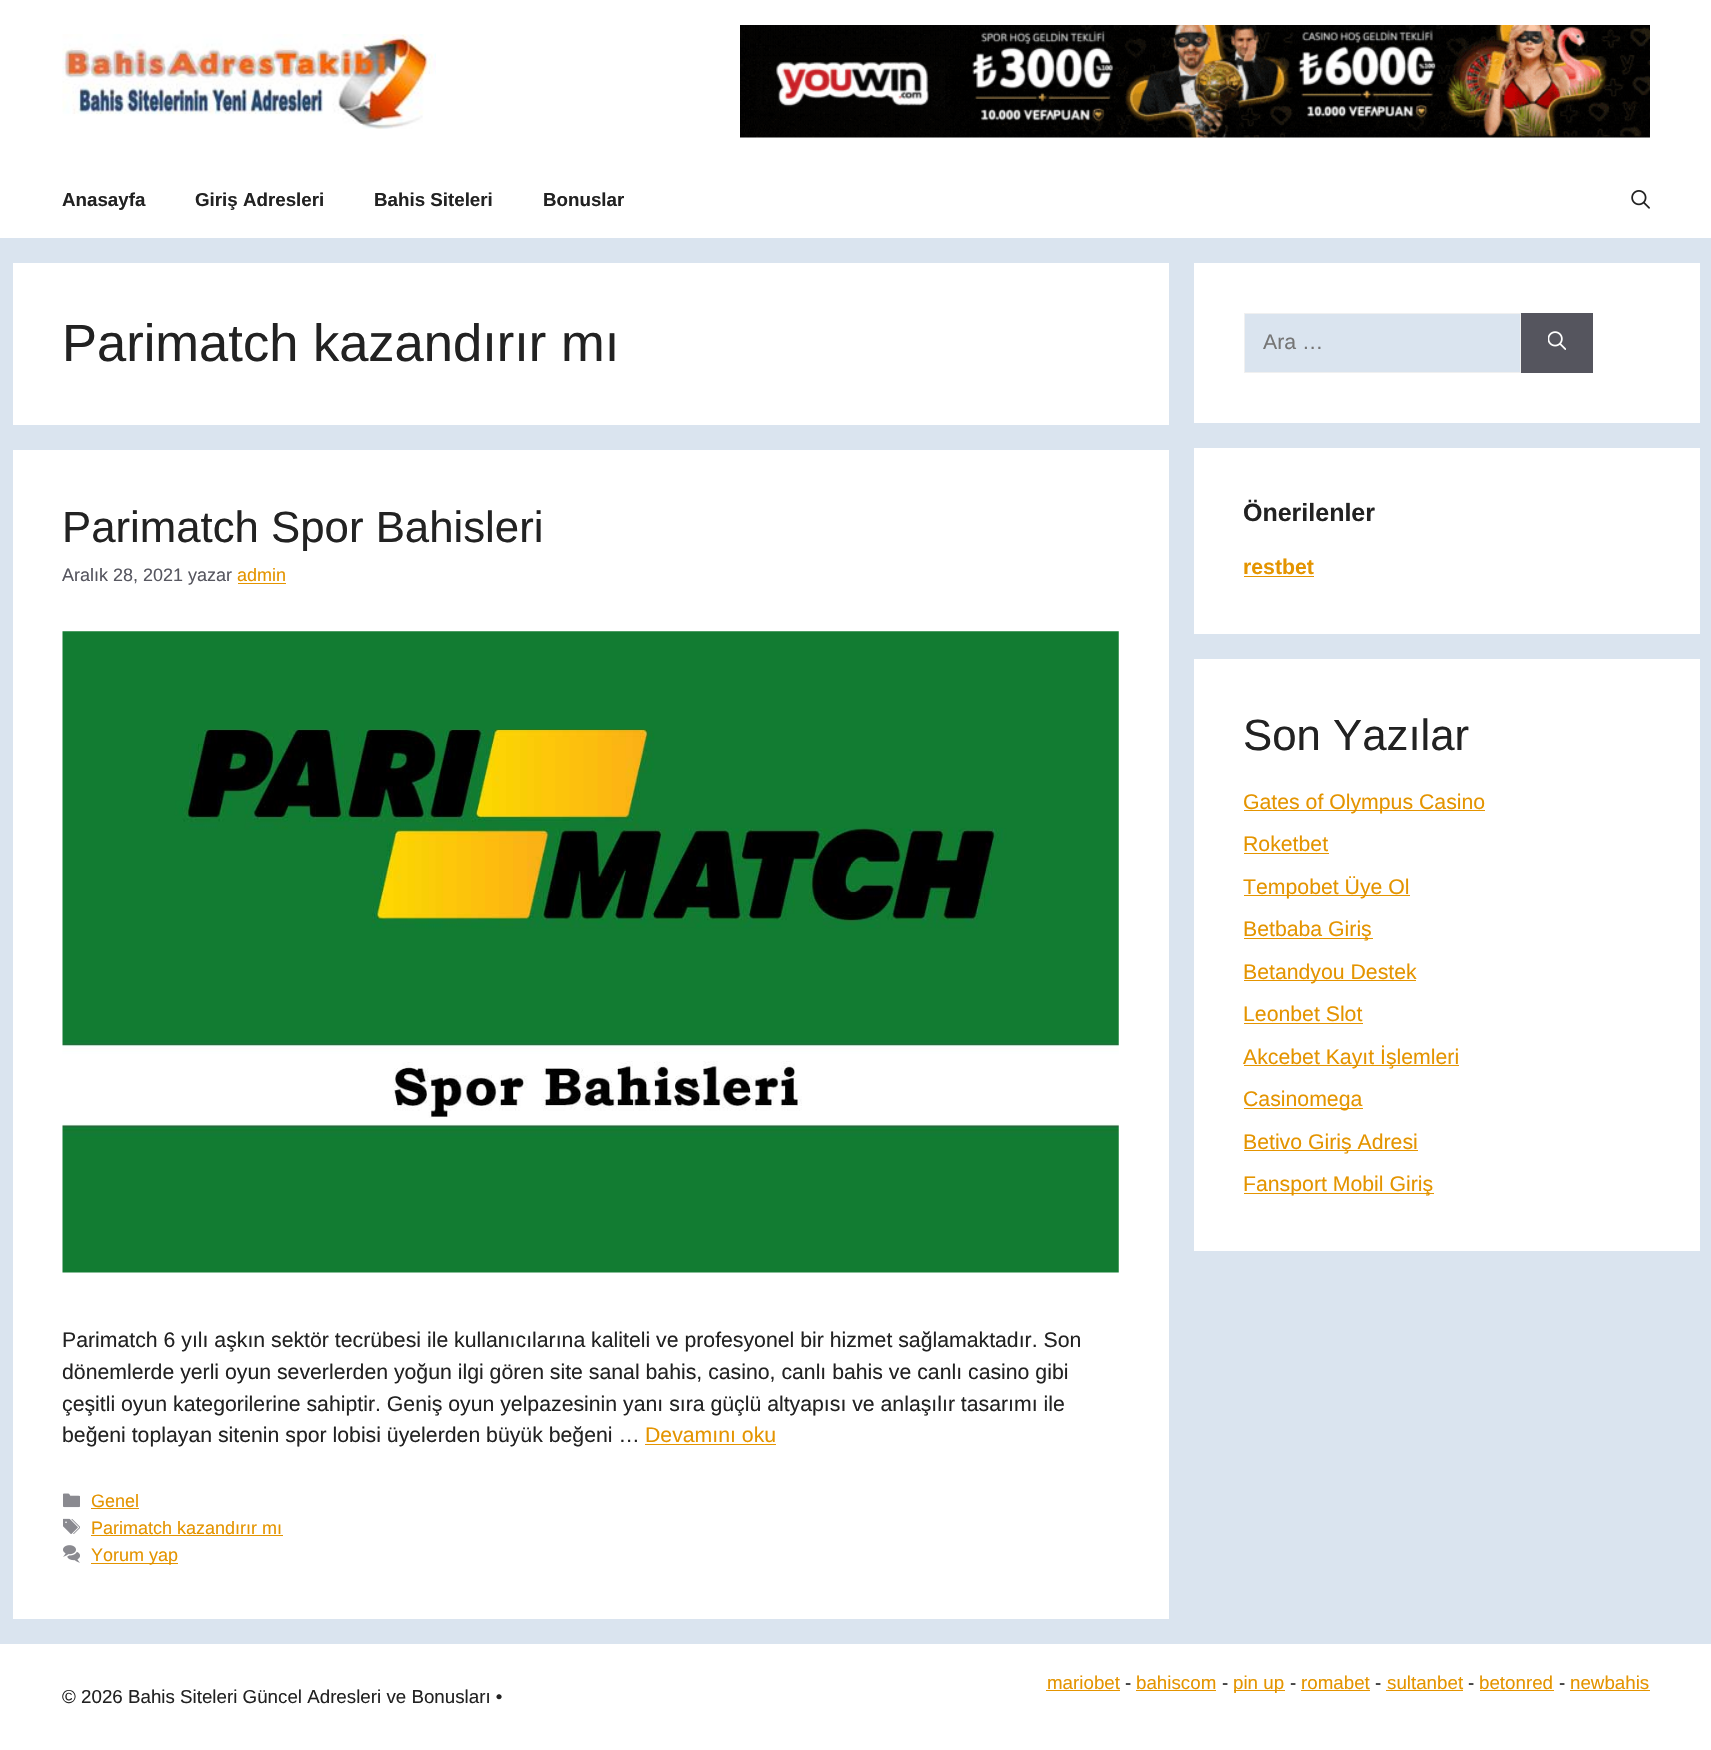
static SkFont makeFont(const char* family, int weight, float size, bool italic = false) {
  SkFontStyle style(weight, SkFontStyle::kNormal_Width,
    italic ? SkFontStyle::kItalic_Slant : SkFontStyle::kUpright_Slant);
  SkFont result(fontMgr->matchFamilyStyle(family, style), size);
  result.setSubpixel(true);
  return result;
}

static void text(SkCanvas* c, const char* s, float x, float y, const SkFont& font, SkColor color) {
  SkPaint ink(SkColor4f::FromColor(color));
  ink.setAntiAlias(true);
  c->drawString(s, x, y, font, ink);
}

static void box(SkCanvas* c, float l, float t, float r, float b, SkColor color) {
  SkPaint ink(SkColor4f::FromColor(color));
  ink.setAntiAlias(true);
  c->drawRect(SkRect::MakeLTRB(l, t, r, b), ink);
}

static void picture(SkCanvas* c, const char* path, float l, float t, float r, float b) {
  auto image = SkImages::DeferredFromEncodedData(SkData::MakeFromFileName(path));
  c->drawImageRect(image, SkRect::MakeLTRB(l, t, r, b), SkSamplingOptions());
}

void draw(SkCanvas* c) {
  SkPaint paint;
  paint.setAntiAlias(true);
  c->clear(0xffdae4ef);
  box(c, 0, 0, 1711, 238, 0xffffffff);
  picture(c, "img_01.png", 62, 34, 436, 129);
  picture(c, "img_02.png", 740, 25, 1650, 138);
  SkFont face1 = makeFont("Liberation Sans", 700, 18.75f);
  text(c, "Anasayfa", 62, 206, face1, 0xff222222);
  text(c, "Giriş Adresleri", 195, 206, face1, 0xff222222);
  text(c, "Bahis Siteleri", 374, 206, face1, 0xff222222);
  text(c, "Bonuslar", 543, 206, face1, 0xff222222);
  picture(c, "img_03.png", 1631, 190, 1650, 209);
  box(c, 13, 263, 1169, 425, 0xffffffff);
  SkFont face2 = makeFont("Liberation Sans", 400, 52.5f);
  text(c, "Parimatch kazandırır mı", 62, 361, face2, 0xff222222);
  box(c, 13, 450, 1169, 1619, 0xffffffff);
  SkFont face3 = makeFont("Liberation Sans", 400, 43.75f);
  text(c, "Parimatch Spor Bahisleri", 62, 542, face3, 0xff222222);
  SkFont face4 = makeFont("Liberation Sans", 400, 18);
  text(c, "Aralık 28, 2021 yazar", 62, 581, face4, 0xff575760);
  text(c, "admin", 237, 581, face4, 0xffe49400);
  box(c, 238, 583, 286, 584, 0xffe49400);
  picture(c, "img_04.png", 62, 631, 1119, 1273);
  SkFont face5 = makeFont("Liberation Sans", 400, 21.25f);
  text(c, "Parimatch 6 yılı aşkın sektör tecrübesi ile kullanıcılarına kaliteli ve profesyonel bir hizmet sağlamaktadır. Son", 62, 1347, face5, 0xff222222);
  text(c, "dönemlerde yerli oyun severlerden yoğun ilgi gören site sanal bahis, casino, canlı bahis ve canlı casino gibi", 62, 1379, face5, 0xff222222);
  text(c, "çeşitli oyun kategorilerine sahiptir. Geniş oyun yelpazesinin yanı sıra güçlü altyapısı ve anlaşılır tasarımı ile", 62, 1411, face5, 0xff222222);
  text(c, "beğeni toplayan sitenin spor lobisi üyelerden büyük beğeni …", 62, 1442, face5, 0xff222222);
  text(c, "Devamını oku", 645, 1442, face5, 0xffe49400);
  box(c, 645, 1444, 776, 1445, 0xffe49400);
  picture(c, "img_05.png", 63, 1493, 80, 1508);
  text(c, "Genel", 91, 1507, face4, 0xffe49400);
  box(c, 91, 1508, 139, 1509, 0xffe49400);
  picture(c, "img_06.png", 63, 1518, 80, 1534);
  text(c, "Parimatch kazandırır mı", 91, 1534, face4, 0xffe49400);
  box(c, 91, 1535, 283, 1536, 0xffe49400);
  picture(c, "img_07.png", 63, 1545, 80, 1563);
  box(c, 91, 1563, 178, 1564, 0xffe49400);
  text(c, "Yorum yap", 91, 1561, face4, 0xffe49400);
  box(c, 1194, 263, 1700, 423, 0xffffffff);
  paint.setColor(0xffdae4ef);
  c->drawRect(SkRect::MakeLTRB(1244.5f, 313.5f, 1520.5f, 372.5f), paint);
  paint.setStyle(SkPaint::kStroke_Style);
  paint.setStrokeWidth(1);
  paint.setColor(0xfff0f0f0);
  c->drawRect(SkRect::MakeLTRB(1244.5f, 313.5f, 1520.5f, 372.5f), paint);
  text(c, "Ara …", 1263, 349, face5, 0xff757575);
  box(c, 1521, 313, 1593, 373, 0xff55555e);
  picture(c, "img_08.png", 1548, 331, 1566, 350);
  box(c, 1194, 448, 1700, 634, 0xffffffff);
  SkFont face6 = makeFont("Liberation Sans", 700, 25);
  text(c, "Önerilenler", 1243, 521, face6, 0xff222222);
  SkFont face7 = makeFont("Liberation Sans", 700, 21.25f);
  text(c, "restbet", 1243, 574, face7, 0xffe49400);
  box(c, 1244, 576, 1314, 577, 0xffe49400);
  box(c, 1194, 659, 1700, 1251, 0xffffffff);
  text(c, "Son Yazılar", 1243, 750, face3, 0xff222222);
  box(c, 1244, 810, 1485, 811, 0xffe49400);
  text(c, "Gates of Olympus Casino", 1243, 809, face5, 0xffe49400);
  text(c, "Roketbet", 1243, 851, face5, 0xffe49400);
  box(c, 1244, 853, 1329, 854, 0xffe49400);
  box(c, 1244, 895, 1410, 896, 0xffe49400);
  text(c, "Tempobet Üye Ol", 1243, 894, face5, 0xffe49400);
  box(c, 1244, 938, 1373, 939, 0xffe49400);
  text(c, "Betbaba Giriş", 1243, 936, face5, 0xffe49400);
  box(c, 1244, 980, 1416, 981, 0xffe49400);
  text(c, "Betandyou Destek", 1243, 979, face5, 0xffe49400);
  text(c, "Leonbet Slot", 1243, 1021, face5, 0xffe49400);
  box(c, 1244, 1023, 1363, 1024, 0xffe49400);
  box(c, 1244, 1065, 1459, 1066, 0xffe49400);
  text(c, "Akcebet Kayıt İşlemleri", 1243, 1064, face5, 0xffe49400);
  box(c, 1244, 1108, 1363, 1109, 0xffe49400);
  text(c, "Casinomega", 1243, 1106, face5, 0xffe49400);
  box(c, 1244, 1150, 1418, 1151, 0xffe49400);
  text(c, "Betivo Giriş Adresi", 1243, 1149, face5, 0xffe49400);
  box(c, 1244, 1193, 1434, 1194, 0xffe49400);
  text(c, "Fansport Mobil Giriş", 1243, 1191, face5, 0xffe49400);
  box(c, 0, 1644, 1711, 1750, 0xffffffff);
  SkFont face8 = makeFont("Liberation Sans", 400, 18.75f);
  text(c, "mariobet", 1047, 1689, face8, 0xffe49400);
  box(c, 1046, 1690, 1120, 1691, 0xffe49400);
  text(c, "-", 1125, 1689, face8, 0xff222222);
  text(c, "bahiscom", 1136, 1689, face8, 0xffe49400);
  box(c, 1136, 1690, 1216, 1691, 0xffe49400);
  text(c, "-", 1222, 1689, face8, 0xff222222);
  box(c, 1234, 1690, 1285, 1691, 0xffe49400);
  text(c, "pin up", 1233, 1689, face8, 0xffe49400);
  text(c, "-", 1290, 1689, face8, 0xff222222);
  text(c, "romabet", 1301, 1689, face8, 0xffe49400);
  box(c, 1301, 1690, 1370, 1691, 0xffe49400);
  text(c, "-", 1375, 1689, face8, 0xff222222);
  text(c, "sultanbet", 1387, 1689, face8, 0xffe49400);
  box(c, 1386, 1690, 1463, 1691, 0xffe49400);
  text(c, "-", 1468, 1689, face8, 0xff222222);
  text(c, "betonred", 1479, 1689, face8, 0xffe49400);
  box(c, 1480, 1690, 1554, 1691, 0xffe49400);
  text(c, "-", 1559, 1689, face8, 0xff222222);
  text(c, "newbahis", 1570, 1689, face8, 0xffe49400);
  box(c, 1570, 1690, 1650, 1691, 0xffe49400);
  text(c, "© 2026 Bahis Siteleri Güncel Adresleri ve Bonusları •", 62, 1703, face8, 0xff222222);
}
